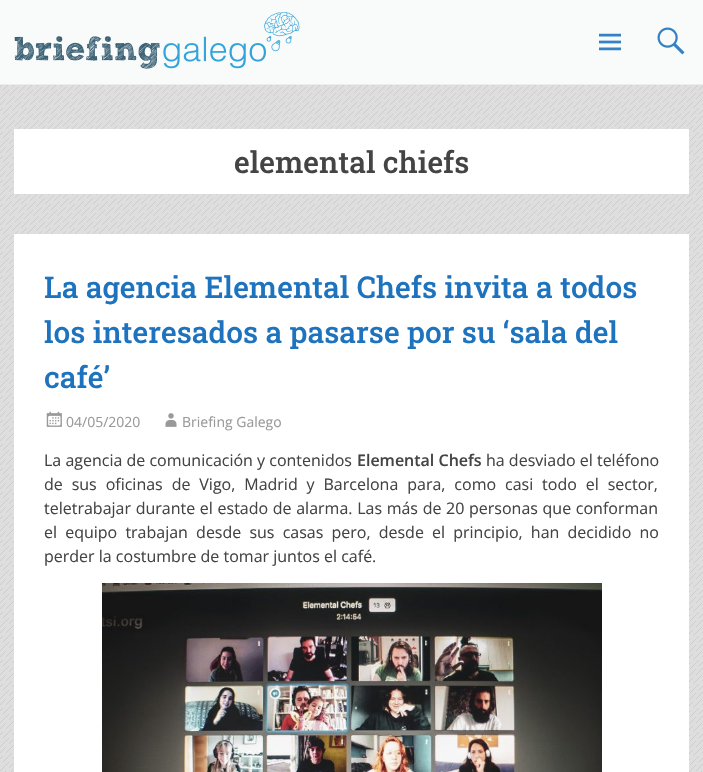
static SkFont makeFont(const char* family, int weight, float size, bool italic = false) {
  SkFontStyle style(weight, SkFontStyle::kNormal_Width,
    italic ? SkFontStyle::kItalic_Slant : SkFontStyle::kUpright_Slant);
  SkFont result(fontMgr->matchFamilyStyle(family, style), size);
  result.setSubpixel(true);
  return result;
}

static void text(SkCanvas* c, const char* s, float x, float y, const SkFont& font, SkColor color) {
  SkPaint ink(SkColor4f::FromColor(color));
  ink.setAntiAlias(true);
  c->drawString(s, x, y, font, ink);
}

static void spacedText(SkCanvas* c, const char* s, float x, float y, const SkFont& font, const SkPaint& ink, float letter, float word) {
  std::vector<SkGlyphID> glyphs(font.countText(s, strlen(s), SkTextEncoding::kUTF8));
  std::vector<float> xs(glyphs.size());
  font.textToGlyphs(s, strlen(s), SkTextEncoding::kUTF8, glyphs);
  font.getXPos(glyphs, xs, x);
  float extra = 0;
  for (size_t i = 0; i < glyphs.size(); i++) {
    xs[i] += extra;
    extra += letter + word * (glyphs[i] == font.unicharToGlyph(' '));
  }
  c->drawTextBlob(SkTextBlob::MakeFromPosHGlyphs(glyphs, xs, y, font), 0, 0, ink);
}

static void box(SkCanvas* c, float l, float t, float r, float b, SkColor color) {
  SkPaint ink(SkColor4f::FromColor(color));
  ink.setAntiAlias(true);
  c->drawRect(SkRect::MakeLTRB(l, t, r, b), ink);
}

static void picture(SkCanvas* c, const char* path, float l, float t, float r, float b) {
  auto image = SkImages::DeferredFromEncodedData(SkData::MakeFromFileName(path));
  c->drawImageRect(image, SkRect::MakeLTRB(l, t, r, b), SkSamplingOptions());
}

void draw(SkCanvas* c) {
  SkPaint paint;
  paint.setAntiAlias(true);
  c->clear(0xffbdcdcd);
  box(c, 0, 0, 703, 84, 0xe6ffffff);
  box(c, 0, 84, 703, 85, 0xffececec);
  picture(c, "img_01.png", 14, 12, 300, 69);
  picture(c, "img_02.png", 599, 33, 621, 51);
  picture(c, "img_03.png", 657, 27, 685, 55);
  picture(c, "img_04.png", 0, 85, 703, 772);
  box(c, 14, 129, 689, 194, 0xffffffff);
  SkFont face1 = makeFont("Roboto Slab", 500, 30);
  text(c, "elemental chiefs", 234, 173, face1, 0xff444444);
  box(c, 14, 234, 689, 772, 0xffffffff);
  text(c, "La agencia Elemental Chefs invita a todos", 44, 298, face1, 0xff1e73be);
  text(c, "los interesados a pasarse por su ‘sala del", 44, 343, face1, 0xff1e73be);
  text(c, "café’", 44, 388, face1, 0xff1e73be);
  picture(c, "img_05.png", 46, 411, 62, 427);
  SkFont face2 = makeFont("Open Sans", 400, 14);
  text(c, "04/05/2020", 66, 427, face2, 0xff999999);
  picture(c, "img_06.png", 165, 413, 177, 427);
  text(c, "Briefing Galego", 182, 427, face2, 0xff999999);
  SkFont face3 = makeFont("Open Sans", 400, 16);
  text(c, "La agencia de comunicación y contenidos", 44, 466, face3, 0xff444444);
  SkFont face4 = makeFont("Open Sans", 600, 16);
  text(c, "Elemental Chefs", 357, 466, face4, 0xff444444);
  text(c, "ha desviado el teléfono", 486, 466, face3, 0xff444444);
  paint.setColor(0xff444444);
  spacedText(c, "de sus oficinas de Vigo, Madrid y Barcelona para, como casi todo el sector,", 44, 490, face3, paint, 0, 4.75f);
  spacedText(c, "teletrabajar durante el estado de alarma. Las más de 20 personas que conforman", 44, 514, face3, paint, 0, 0.5f);
  spacedText(c, "el equipo trabajan desde sus casas pero, desde el principio, han decidido no", 44, 538, face3, paint, 0, 4);
  text(c, "perder la costumbre de tomar juntos el café.", 44, 562, face3, 0xff444444);
  picture(c, "img_07.png", 102, 583, 602, 772);
}
